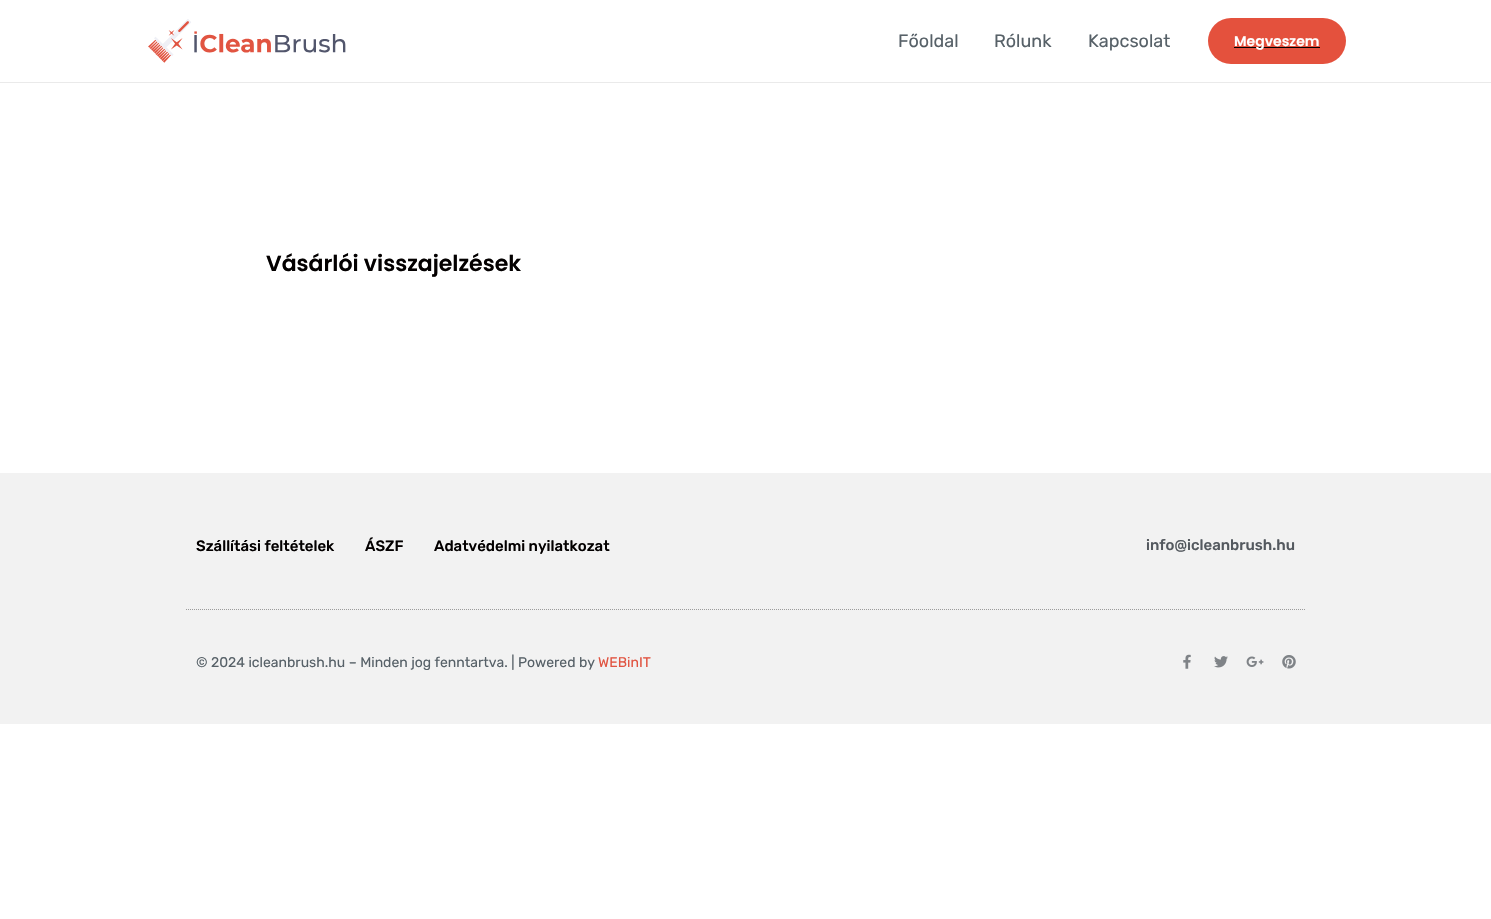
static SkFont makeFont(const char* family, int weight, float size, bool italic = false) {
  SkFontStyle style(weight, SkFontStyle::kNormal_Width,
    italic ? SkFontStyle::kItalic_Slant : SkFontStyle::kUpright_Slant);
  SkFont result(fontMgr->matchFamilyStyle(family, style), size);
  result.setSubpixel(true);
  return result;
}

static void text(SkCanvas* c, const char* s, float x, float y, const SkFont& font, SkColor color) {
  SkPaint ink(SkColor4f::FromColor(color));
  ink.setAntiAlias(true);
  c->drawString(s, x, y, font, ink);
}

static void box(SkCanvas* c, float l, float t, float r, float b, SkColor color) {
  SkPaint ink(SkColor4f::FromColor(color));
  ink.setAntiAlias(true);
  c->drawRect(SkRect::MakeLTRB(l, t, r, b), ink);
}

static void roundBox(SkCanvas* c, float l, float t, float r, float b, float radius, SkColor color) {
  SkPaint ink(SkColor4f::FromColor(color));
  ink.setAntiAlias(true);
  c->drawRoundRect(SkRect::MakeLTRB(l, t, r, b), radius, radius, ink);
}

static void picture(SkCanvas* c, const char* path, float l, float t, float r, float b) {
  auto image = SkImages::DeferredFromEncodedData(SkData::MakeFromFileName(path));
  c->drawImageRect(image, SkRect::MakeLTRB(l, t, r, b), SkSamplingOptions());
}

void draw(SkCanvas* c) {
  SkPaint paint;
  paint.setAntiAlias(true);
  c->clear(0xffffffff);
  box(c, 0, 82, 1491, 83, 0xffeaeaea);
  picture(c, "img_01.png", 148, 19, 346, 63);
  SkFont face1 = makeFont("Rubik", 400, 18);
  text(c, "Főoldal", 898, 47, face1, 0xff576168);
  text(c, "Rólunk", 994, 47, face1, 0xff576168);
  text(c, "Kapcsolat", 1088, 47, face1, 0xff576168);
  roundBox(c, 1208, 18, 1346, 64, 23, 0xffe4513d);
  box(c, 1234, 47, 1320, 48, 0xff030000);
  SkFont face2 = makeFont("Poppins", 600, 14);
  text(c, "Megveszem", 1234, 46, face2, 0xffffffff);
  SkFont face3 = makeFont("Poppins", 600, 22);
  text(c, "Vásárlói visszajelzések", 266, 271, face3, 0xff030000);
  box(c, 0, 473, 1491, 724, 0xfff2f2f2);
  paint.setStyle(SkPaint::kStroke_Style);
  paint.setStrokeWidth(1);
  paint.setColor(0xff9b9b9b);
  paint.setPathEffect(SkDashPathEffect::Make({{1, 1}}, 0));
  c->drawPath(SkPathBuilder().moveTo(186, 609.5f).lineTo(1306, 609.5f).detach(), paint);
  paint.setPathEffect(nullptr);
  SkFont face4 = makeFont("Rubik", 500, 15);
  text(c, "Szállítási feltételek", 196, 551, face4, 0xff030000);
  text(c, "ÁSZF", 365, 551, face4, 0xff030000);
  text(c, "Adatvédelmi nyilatkozat", 434, 551, face4, 0xff030000);
  text(c, "info@icleanbrush.hu", 1146, 550, face4, 0xff54595f);
  SkFont face5 = makeFont("Rubik", 400, 14);
  text(c, "© 2024 icleanbrush.hu – Minden jog fenntartva. | Powered by", 196, 667, face5, 0xff576168);
  text(c, "WEBinIT", 598, 667, face5, 0xffe15441);
  picture(c, "img_02.png", 1183, 654, 1191, 669);
  picture(c, "img_03.png", 1214, 656, 1228, 668);
  picture(c, "img_04.png", 1246, 656, 1264, 667);
  picture(c, "img_05.png", 1282, 655, 1296, 669);
}
